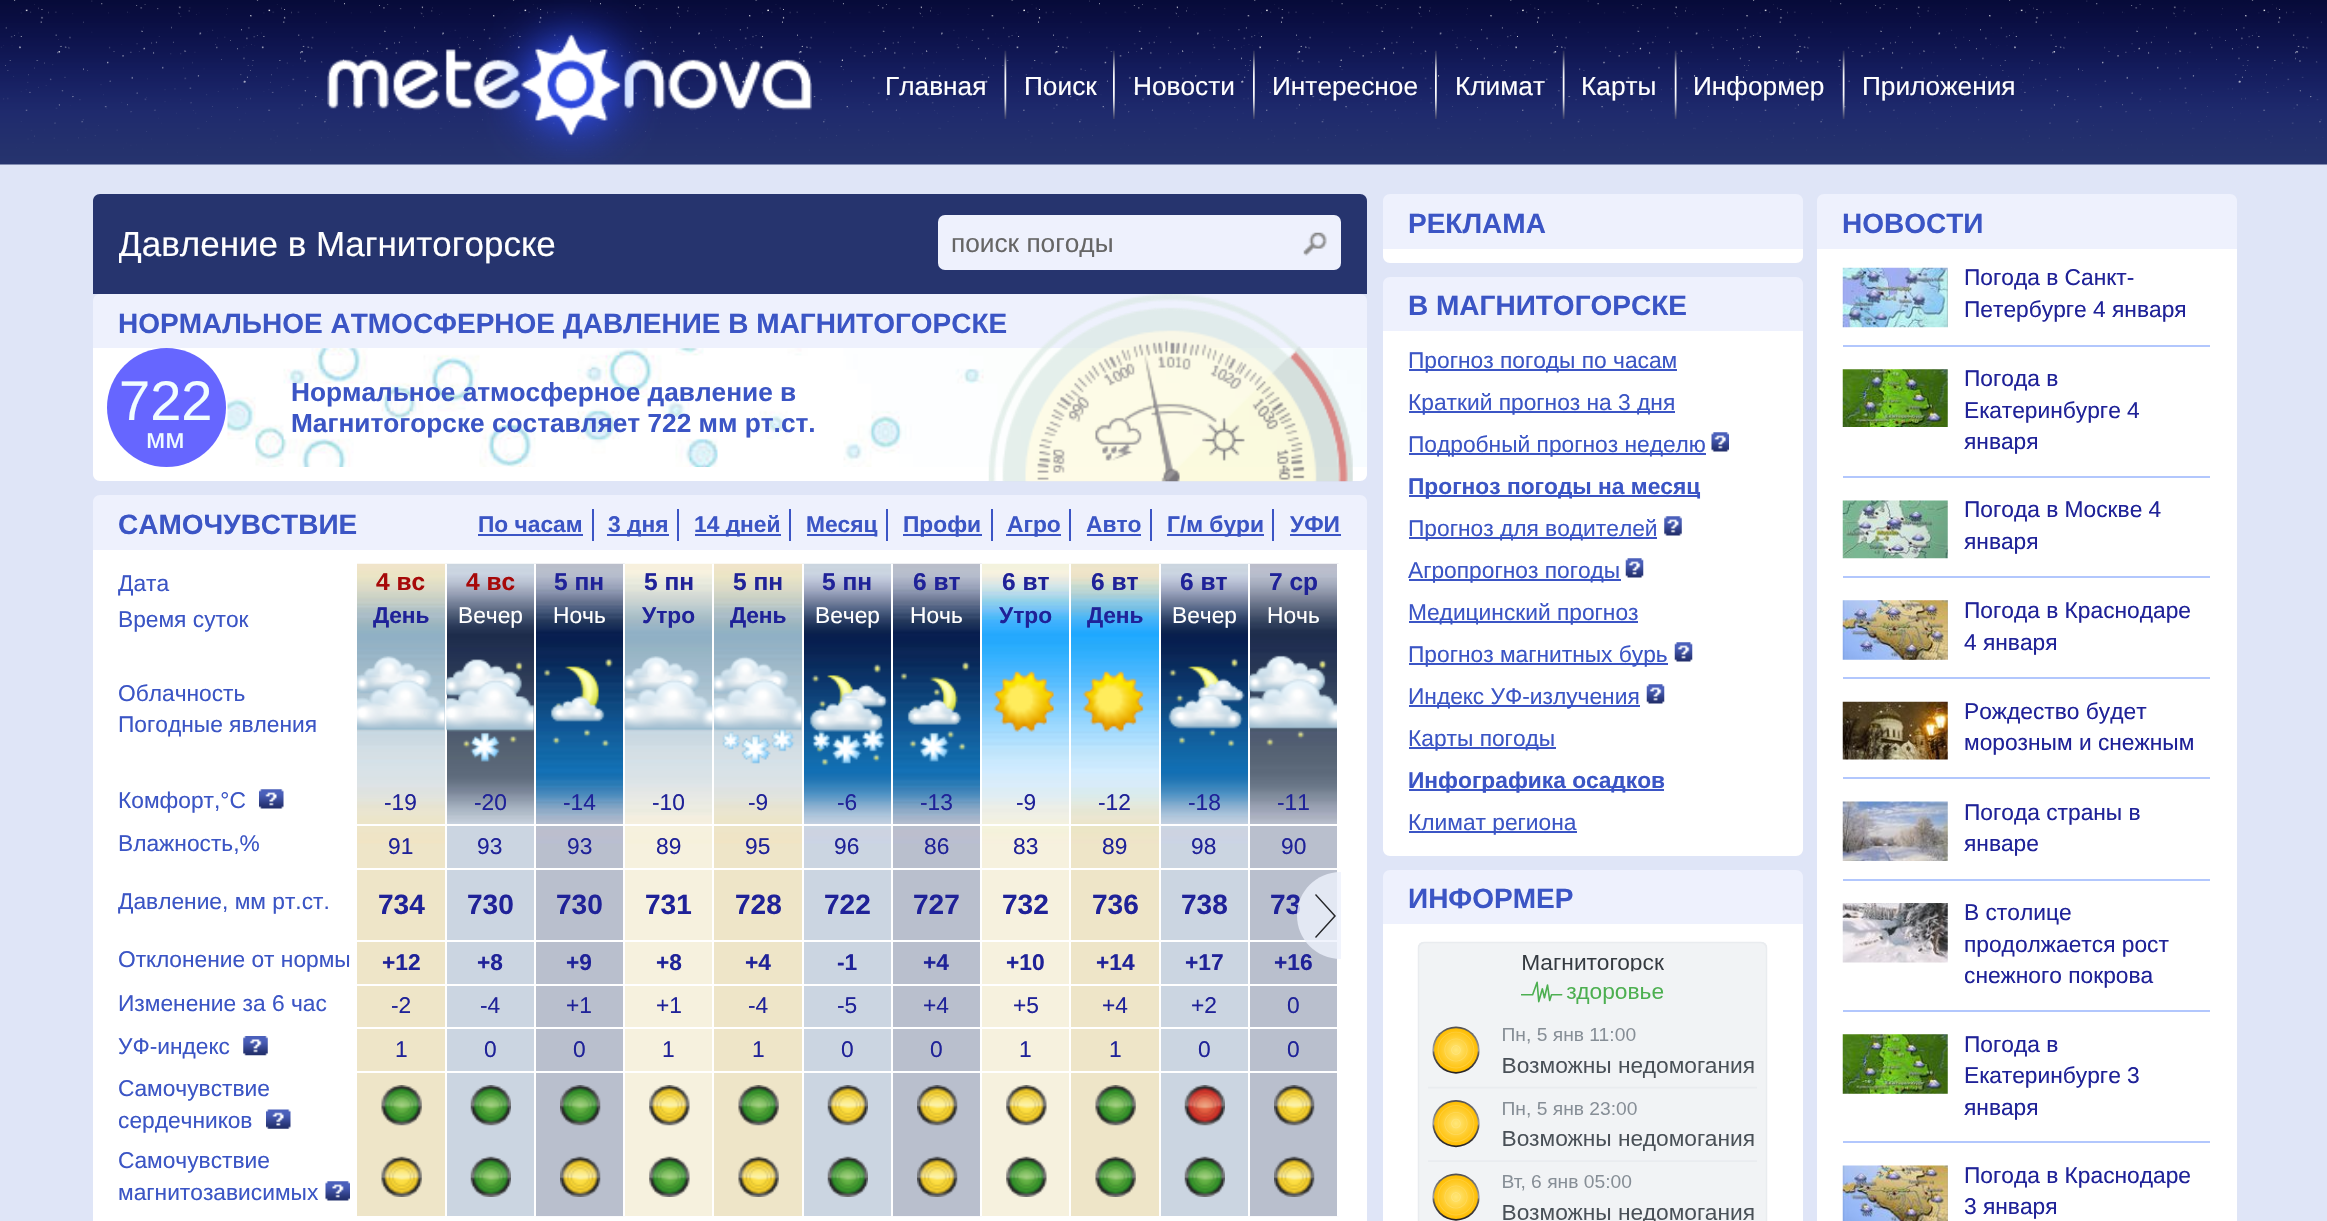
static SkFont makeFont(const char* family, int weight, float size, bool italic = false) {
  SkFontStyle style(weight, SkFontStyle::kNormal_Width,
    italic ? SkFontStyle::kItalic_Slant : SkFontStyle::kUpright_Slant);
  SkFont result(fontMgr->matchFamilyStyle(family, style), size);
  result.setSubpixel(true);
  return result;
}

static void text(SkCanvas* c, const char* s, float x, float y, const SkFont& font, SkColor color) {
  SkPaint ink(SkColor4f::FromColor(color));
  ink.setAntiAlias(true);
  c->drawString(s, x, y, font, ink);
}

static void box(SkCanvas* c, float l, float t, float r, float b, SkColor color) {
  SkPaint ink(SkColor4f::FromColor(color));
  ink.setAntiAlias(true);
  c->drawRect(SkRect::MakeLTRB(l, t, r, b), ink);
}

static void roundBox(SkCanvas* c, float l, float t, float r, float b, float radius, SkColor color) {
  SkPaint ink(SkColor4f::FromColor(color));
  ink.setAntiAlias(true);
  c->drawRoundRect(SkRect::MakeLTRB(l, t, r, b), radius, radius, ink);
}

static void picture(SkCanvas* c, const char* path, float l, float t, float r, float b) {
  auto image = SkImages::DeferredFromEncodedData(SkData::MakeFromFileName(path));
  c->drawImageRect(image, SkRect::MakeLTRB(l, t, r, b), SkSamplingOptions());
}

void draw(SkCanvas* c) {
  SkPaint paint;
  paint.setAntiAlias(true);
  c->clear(0xffdfe5f7);
  picture(c, "img_01.png", 0, 0, 2327, 165);
  picture(c, "img_02.png", 327, 0, 812, 164);
  SkFont face1 = makeFont("Liberation Sans", 400, 26.25f);
  text(c, "Главная", 885, 95, face1, 0xffffffff);
  picture(c, "img_03.png", 1004, 50, 1007, 119);
  text(c, "Поиск", 1024, 95, face1, 0xffffffff);
  picture(c, "img_04.png", 1113, 50, 1115, 119);
  text(c, "Новости", 1133, 95, face1, 0xffffffff);
  picture(c, "img_05.png", 1253, 50, 1255, 119);
  text(c, "Интересное", 1272, 95, face1, 0xffffffff);
  picture(c, "img_06.png", 1435, 50, 1437, 119);
  text(c, "Климат", 1455, 95, face1, 0xffffffff);
  picture(c, "img_07.png", 1562, 50, 1565, 119);
  text(c, "Карты", 1581, 95, face1, 0xffffffff);
  picture(c, "img_08.png", 1674, 50, 1677, 119);
  text(c, "Информер", 1693, 95, face1, 0xffffffff);
  picture(c, "img_09.png", 1842, 50, 1845, 119);
  text(c, "Приложения", 1862, 95, face1, 0xffffffff);
  paint.setColor(0xff26346e);
  c->drawPath(SkPathBuilder().moveTo(100, 194).lineTo(1360, 194).cubicTo(1364, 194, 1367, 197, 1367, 201).lineTo(1367, 294).lineTo(93, 294).lineTo(93, 201).cubicTo(93, 197, 96, 194, 100, 194).close().detach(), paint);
  c->save();
  c->clipRect(SkRect::MakeLTRB(119, 194, 583, 294));
  SkFont face2 = makeFont("Liberation Sans", 400, 35);
  text(c, "Давление в Магнитогорске", 118, 256, face2, 0xffffffff);
  c->restore();
  roundBox(c, 938, 215, 1341, 270, 7, 0xffeef1fd);
  c->save();
  c->clipRect(SkRect::MakeLTRB(952, 228, 1341, 257));
  text(c, "поиск погоды", 951, 252, face1, 0xff666666);
  c->restore();
  picture(c, "img_10.png", 1303, 232, 1327, 256);
  paint.setColor(0xffeef1fd);
  c->drawPath(SkPathBuilder().moveTo(100, 294).lineTo(1360, 294).cubicTo(1364, 294, 1367, 297, 1367, 301).lineTo(1367, 348).lineTo(93, 348).lineTo(93, 301).cubicTo(93, 297, 96, 294, 100, 294).close().detach(), paint);
  SkFont face3 = makeFont("Liberation Sans", 700, 28);
  text(c, "НОРМАЛЬНОЕ АТМОСФЕРНОЕ ДАВЛЕНИЕ В МАГНИТОГОРСКЕ", 118, 333, face3, 0xff3b55c5);
  box(c, 93, 348, 1367, 467, 0xffffffff);
  picture(c, "img_12.png", 227, 348, 1367, 467);
  paint.setColor(0xffffffff);
  c->drawPath(SkPathBuilder().moveTo(93, 467).lineTo(1367, 467).lineTo(1367, 474).cubicTo(1367, 478, 1364, 481, 1360, 481).lineTo(100, 481).cubicTo(96, 481, 93, 478, 93, 474).close().detach(), paint);
  picture(c, "img_11.png", 988, 294, 1353, 482);
  paint.setColor(0xff6666ff);
  c->drawCircle(166.5f, 407.5f, 59.5f, paint);
  SkFont face4 = makeFont("Liberation Sans", 400, 56);
  text(c, "722", 119, 420, face4, 0xfff1fdff);
  SkFont face5 = makeFont("Liberation Sans", 400, 28);
  text(c, "мм", 146, 448, face5, 0xfff1fdff);
  SkFont face6 = makeFont("Liberation Sans", 700, 26.25f);
  text(c, "Нормальное атмосферное давление в", 291, 401, face6, 0xff3b55c5);
  text(c, "Магнитогорске составляет 722 мм рт.ст.", 291, 432, face6, 0xff3b55c5);
  paint.setColor(0xffeef1fd);
  c->drawPath(SkPathBuilder().moveTo(100, 495).lineTo(1360, 495).cubicTo(1364, 495, 1367, 498, 1367, 502).lineTo(1367, 550).lineTo(93, 550).lineTo(93, 502).cubicTo(93, 498, 96, 495, 100, 495).close().detach(), paint);
  text(c, "САМОЧУВСТВИЕ", 118, 534, face3, 0xff3b55c5);
  box(c, 592, 509, 594, 541, 0xff3b55c5);
  SkFont face7 = makeFont("Liberation Sans", 700, 22.75f);
  text(c, "По часам", 478, 532, face7, 0xff3b55c5);
  box(c, 478, 534, 583, 536, 0xff3b55c5);
  box(c, 677, 509, 679, 541, 0xff3b55c5);
  box(c, 607, 534, 669, 536, 0xff3b55c5);
  text(c, "3 дня", 608, 532, face7, 0xff3b55c5);
  box(c, 789, 509, 791, 541, 0xff3b55c5);
  box(c, 695, 534, 781, 536, 0xff3b55c5);
  text(c, "14 дней", 694, 532, face7, 0xff3b55c5);
  box(c, 886, 509, 888, 541, 0xff3b55c5);
  box(c, 807, 534, 877, 536, 0xff3b55c5);
  text(c, "Месяц", 806, 532, face7, 0xff3b55c5);
  box(c, 991, 509, 993, 541, 0xff3b55c5);
  box(c, 903, 534, 982, 536, 0xff3b55c5);
  text(c, "Профи", 903, 532, face7, 0xff3b55c5);
  box(c, 1069, 509, 1071, 541, 0xff3b55c5);
  box(c, 1006, 534, 1061, 536, 0xff3b55c5);
  text(c, "Агро", 1007, 532, face7, 0xff3b55c5);
  box(c, 1150, 509, 1152, 541, 0xff3b55c5);
  text(c, "Авто", 1086, 532, face7, 0xff3b55c5);
  box(c, 1087, 534, 1141, 536, 0xff3b55c5);
  box(c, 1272, 509, 1274, 541, 0xff3b55c5);
  box(c, 1167, 534, 1264, 536, 0xff3b55c5);
  text(c, "Г/м бури", 1167, 532, face7, 0xff3b55c5);
  text(c, "УФИ", 1290, 532, face7, 0xff3b55c5);
  box(c, 1290, 534, 1341, 536, 0xff3b55c5);
  box(c, 93, 550, 1367, 1221, 0xffffffff);
  SkFont face8 = makeFont("Liberation Sans", 400, 22.75f);
  text(c, "Дата", 118, 591, face8, 0xff3b55c5);
  text(c, "Время суток", 118, 627, face8, 0xff3b55c5);
  text(c, "Облачность", 118, 701, face8, 0xff3b55c5);
  text(c, "Погодные явления", 118, 732, face8, 0xff3b55c5);
  text(c, "Комфорт,°C", 118, 808, face8, 0xff3b55c5);
  picture(c, "img_13.png", 259, 789, 284, 809);
  text(c, "Влажность,%", 118, 851, face8, 0xff3b55c5);
  text(c, "Давление, мм рт.ст.", 118, 909, face8, 0xff3b55c5);
  text(c, "Отклонение от нормы", 118, 967, face8, 0xff3b55c5);
  text(c, "Изменение за 6 час", 118, 1011, face8, 0xff3b55c5);
  text(c, "УФ-индекс", 118, 1054, face8, 0xff3b55c5);
  picture(c, "img_14.png", 243, 1036, 268, 1056);
  text(c, "Самочувствие", 118, 1096, face8, 0xff3b55c5);
  text(c, "сердечников", 118, 1128, face8, 0xff3b55c5);
  picture(c, "img_15.png", 266, 1109, 291, 1129);
  text(c, "Самочувствие", 118, 1168, face8, 0xff3b55c5);
  text(c, "магнитозависимых", 118, 1200, face8, 0xff3b55c5);
  picture(c, "img_16.png", 325, 1181, 350, 1201);
  picture(c, "img_17.png", 357, 563, 447, 1216);
  SkFont face9 = makeFont("Liberation Sans", 700, 24.5f);
  text(c, "4 вс", 376, 590, face9, 0xffa70909);
  text(c, "День", 373, 623, face7, 0xff1f2298);
  picture(c, "img_18.png", 357, 656, 445, 731);
  box(c, 357, 824, 446, 826, 0xffffffff);
  text(c, "-19", 384, 810, face8, 0xff1f2298);
  box(c, 357, 868, 446, 870, 0xffffffff);
  text(c, "91", 388, 854, face8, 0xff1f2298);
  box(c, 357, 940, 446, 942, 0xffffffff);
  text(c, "734", 378, 914, face3, 0xff1f2298);
  box(c, 357, 984, 446, 986, 0xffffffff);
  text(c, "+12", 382, 970, face7, 0xff1f2298);
  box(c, 357, 1027, 446, 1029, 0xffffffff);
  text(c, "-2", 391, 1013, face8, 0xff1f2298);
  box(c, 357, 1071, 446, 1073, 0xffffffff);
  text(c, "1", 395, 1057, face8, 0xff1f2298);
  picture(c, "img_19.png", 381, 1085, 422, 1126);
  picture(c, "img_20.png", 381, 1156, 422, 1197);
  picture(c, "img_21.png", 446, 563, 536, 1216);
  box(c, 446, 824, 536, 826, 0xffffffff);
  box(c, 446, 868, 536, 870, 0xffffffff);
  box(c, 446, 940, 536, 942, 0xffffffff);
  box(c, 446, 984, 536, 986, 0xffffffff);
  box(c, 446, 1027, 536, 1029, 0xffffffff);
  box(c, 446, 1071, 536, 1073, 0xffffffff);
  box(c, 445, 564, 447, 1216, 0xffffffff);
  text(c, "4 вс", 466, 590, face9, 0xffa70909);
  text(c, "Вечер", 458, 623, face8, 0xffffffff);
  picture(c, "img_22.png", 446, 659, 534, 762);
  text(c, "-20", 474, 810, face8, 0xff1f2298);
  text(c, "93", 477, 854, face8, 0xff1f2298);
  text(c, "730", 467, 914, face3, 0xff1f2298);
  text(c, "+8", 477, 970, face7, 0xff1f2298);
  text(c, "-4", 480, 1013, face8, 0xff1f2298);
  text(c, "0", 484, 1057, face8, 0xff1f2298);
  picture(c, "img_23.png", 470, 1085, 511, 1126);
  picture(c, "img_24.png", 470, 1156, 511, 1197);
  picture(c, "img_25.png", 535, 563, 625, 1217);
  box(c, 534, 564, 536, 1216, 0xffffffff);
  text(c, "5 пн", 554, 590, face9, 0xff1f2298);
  text(c, "Ночь", 553, 623, face8, 0xffffffff);
  picture(c, "img_26.png", 543, 658, 613, 748);
  box(c, 536, 824, 625, 826, 0xffffffff);
  text(c, "-14", 563, 810, face8, 0xff1f2298);
  box(c, 536, 868, 625, 870, 0xffffffff);
  text(c, "93", 567, 854, face8, 0xff1f2298);
  box(c, 536, 940, 625, 942, 0xffffffff);
  text(c, "730", 556, 914, face3, 0xff1f2298);
  box(c, 536, 984, 625, 986, 0xffffffff);
  text(c, "+9", 566, 970, face7, 0xff1f2298);
  box(c, 536, 1027, 625, 1029, 0xffffffff);
  text(c, "+1", 566, 1013, face8, 0xff1f2298);
  box(c, 536, 1071, 625, 1073, 0xffffffff);
  text(c, "0", 573, 1057, face8, 0xff1f2298);
  picture(c, "img_27.png", 560, 1085, 601, 1126);
  picture(c, "img_28.png", 560, 1156, 601, 1197);
  picture(c, "img_29.png", 624, 563, 714, 1216);
  box(c, 623, 564, 625, 1216, 0xffffffff);
  text(c, "5 пн", 644, 590, face9, 0xff1f2298);
  text(c, "Утро", 642, 623, face7, 0xff1f2298);
  box(c, 625, 824, 714, 826, 0xffffffff);
  box(c, 625, 868, 714, 870, 0xffffffff);
  box(c, 625, 940, 714, 942, 0xffffffff);
  box(c, 625, 984, 714, 986, 0xffffffff);
  box(c, 625, 1027, 714, 1029, 0xffffffff);
  box(c, 625, 1071, 714, 1073, 0xffffffff);
  box(c, 712, 564, 714, 1216, 0xffffffff);
  picture(c, "img_30.png", 624, 656, 713, 731);
  text(c, "-10", 652, 810, face8, 0xff1f2298);
  text(c, "89", 656, 854, face8, 0xff1f2298);
  text(c, "731", 645, 914, face3, 0xff1f2298);
  text(c, "+8", 656, 970, face7, 0xff1f2298);
  text(c, "+1", 656, 1013, face8, 0xff1f2298);
  text(c, "1", 662, 1057, face8, 0xff1f2298);
  picture(c, "img_31.png", 649, 1085, 690, 1126);
  picture(c, "img_32.png", 649, 1156, 690, 1197);
  picture(c, "img_17.png", 714, 563, 804, 1216);
  text(c, "5 пн", 733, 590, face9, 0xff1f2298);
  text(c, "День", 730, 623, face7, 0xff1f2298);
  picture(c, "img_33.png", 714, 656, 802, 764);
  box(c, 714, 824, 803, 826, 0xffffffff);
  text(c, "-9", 748, 810, face8, 0xff1f2298);
  box(c, 714, 868, 803, 870, 0xffffffff);
  text(c, "95", 745, 854, face8, 0xff1f2298);
  box(c, 714, 940, 803, 942, 0xffffffff);
  text(c, "728", 735, 914, face3, 0xff1f2298);
  box(c, 714, 984, 803, 986, 0xffffffff);
  text(c, "+4", 745, 970, face7, 0xff1f2298);
  box(c, 714, 1027, 803, 1029, 0xffffffff);
  text(c, "-4", 748, 1013, face8, 0xff1f2298);
  box(c, 714, 1071, 803, 1073, 0xffffffff);
  text(c, "1", 752, 1057, face8, 0xff1f2298);
  picture(c, "img_34.png", 738, 1085, 779, 1126);
  picture(c, "img_35.png", 738, 1156, 779, 1197);
  picture(c, "img_36.png", 803, 563, 893, 1216);
  box(c, 803, 824, 893, 826, 0xffffffff);
  box(c, 803, 868, 893, 870, 0xffffffff);
  box(c, 803, 940, 893, 942, 0xffffffff);
  box(c, 803, 984, 893, 986, 0xffffffff);
  box(c, 803, 1027, 893, 1029, 0xffffffff);
  box(c, 803, 1071, 893, 1073, 0xffffffff);
  box(c, 802, 564, 804, 1216, 0xffffffff);
  text(c, "5 пн", 822, 590, face9, 0xff1f2298);
  text(c, "Вечер", 815, 623, face8, 0xffffffff);
  picture(c, "img_37.png", 809, 663, 888, 766);
  text(c, "-6", 837, 810, face8, 0xff1f2298);
  text(c, "96", 834, 854, face8, 0xff1f2298);
  text(c, "722", 824, 914, face3, 0xff1f2298);
  text(c, "-1", 837, 970, face7, 0xff1f2298);
  text(c, "-5", 837, 1013, face8, 0xff1f2298);
  text(c, "0", 841, 1057, face8, 0xff1f2298);
  picture(c, "img_38.png", 827, 1085, 868, 1126);
  picture(c, "img_39.png", 827, 1156, 868, 1197);
  picture(c, "img_40.png", 892, 563, 982, 1217);
  box(c, 891, 564, 893, 1216, 0xffffffff);
  text(c, "6 вт", 913, 590, face9, 0xff1f2298);
  text(c, "Ночь", 910, 623, face8, 0xffffffff);
  picture(c, "img_41.png", 900, 661, 970, 762);
  box(c, 893, 824, 982, 826, 0xffffffff);
  text(c, "-13", 920, 810, face8, 0xff1f2298);
  box(c, 893, 868, 982, 870, 0xffffffff);
  text(c, "86", 924, 854, face8, 0xff1f2298);
  box(c, 893, 940, 982, 942, 0xffffffff);
  text(c, "727", 913, 914, face3, 0xff1f2298);
  box(c, 893, 984, 982, 986, 0xffffffff);
  text(c, "+4", 923, 970, face7, 0xff1f2298);
  box(c, 893, 1027, 982, 1029, 0xffffffff);
  text(c, "+4", 923, 1013, face8, 0xff1f2298);
  box(c, 893, 1071, 982, 1073, 0xffffffff);
  text(c, "0", 930, 1057, face8, 0xff1f2298);
  picture(c, "img_42.png", 917, 1085, 958, 1126);
  picture(c, "img_43.png", 917, 1156, 958, 1197);
  picture(c, "img_44.png", 981, 563, 1071, 1216);
  box(c, 980, 564, 982, 1216, 0xffffffff);
  text(c, "6 вт", 1002, 590, face9, 0xff1f2298);
  text(c, "Утро", 999, 623, face7, 0xff1f2298);
  picture(c, "img_45.png", 993, 671, 1054, 732);
  box(c, 982, 824, 1071, 826, 0xffffffff);
  text(c, "-9", 1016, 810, face8, 0xff1f2298);
  box(c, 982, 868, 1071, 870, 0xffffffff);
  text(c, "83", 1013, 854, face8, 0xff1f2298);
  box(c, 982, 940, 1071, 942, 0xffffffff);
  text(c, "732", 1002, 914, face3, 0xff1f2298);
  box(c, 982, 984, 1071, 986, 0xffffffff);
  text(c, "+10", 1006, 970, face7, 0xff1f2298);
  box(c, 982, 1027, 1071, 1029, 0xffffffff);
  text(c, "+5", 1013, 1013, face8, 0xff1f2298);
  box(c, 982, 1071, 1071, 1073, 0xffffffff);
  text(c, "1", 1019, 1057, face8, 0xff1f2298);
  picture(c, "img_46.png", 1006, 1085, 1047, 1126);
  picture(c, "img_47.png", 1006, 1156, 1047, 1197);
  picture(c, "img_48.png", 1071, 563, 1161, 1216);
  box(c, 1069, 564, 1071, 1216, 0xffffffff);
  text(c, "6 вт", 1091, 590, face9, 0xff1f2298);
  text(c, "День", 1087, 623, face7, 0xff1f2298);
  picture(c, "img_49.png", 1082, 671, 1144, 732);
  box(c, 1071, 824, 1160, 826, 0xffffffff);
  text(c, "-12", 1098, 810, face8, 0xff1f2298);
  box(c, 1071, 868, 1160, 870, 0xffffffff);
  text(c, "89", 1102, 854, face8, 0xff1f2298);
  box(c, 1071, 940, 1160, 942, 0xffffffff);
  text(c, "736", 1092, 914, face3, 0xff1f2298);
  box(c, 1071, 984, 1160, 986, 0xffffffff);
  text(c, "+14", 1096, 970, face7, 0xff1f2298);
  box(c, 1071, 1027, 1160, 1029, 0xffffffff);
  text(c, "+4", 1102, 1013, face8, 0xff1f2298);
  box(c, 1071, 1071, 1160, 1073, 0xffffffff);
  text(c, "1", 1109, 1057, face8, 0xff1f2298);
  picture(c, "img_50.png", 1095, 1085, 1136, 1126);
  picture(c, "img_51.png", 1095, 1156, 1136, 1197);
  picture(c, "img_52.png", 1160, 563, 1250, 1216);
  box(c, 1160, 824, 1250, 826, 0xffffffff);
  box(c, 1160, 868, 1250, 870, 0xffffffff);
  box(c, 1160, 940, 1250, 942, 0xffffffff);
  box(c, 1160, 984, 1250, 986, 0xffffffff);
  box(c, 1160, 1027, 1250, 1029, 0xffffffff);
  box(c, 1160, 1071, 1250, 1073, 0xffffffff);
  box(c, 1159, 564, 1161, 1216, 0xffffffff);
  text(c, "6 вт", 1180, 590, face9, 0xff1f2298);
  text(c, "Вечер", 1172, 623, face8, 0xffffffff);
  picture(c, "img_53.png", 1168, 658, 1245, 748);
  text(c, "-18", 1188, 810, face8, 0xff1f2298);
  text(c, "98", 1191, 854, face8, 0xff1f2298);
  text(c, "738", 1181, 914, face3, 0xff1f2298);
  text(c, "+17", 1185, 970, face7, 0xff1f2298);
  text(c, "+2", 1191, 1013, face8, 0xff1f2298);
  text(c, "0", 1198, 1057, face8, 0xff1f2298);
  picture(c, "img_54.png", 1184, 1085, 1225, 1126);
  picture(c, "img_24.png", 1184, 1156, 1225, 1197);
  picture(c, "img_55.png", 1249, 563, 1339, 1217);
  box(c, 1248, 564, 1250, 1216, 0xffffffff);
  text(c, "7 ср", 1269, 590, face9, 0xff1f2298);
  text(c, "Ночь", 1267, 623, face8, 0xffffffff);
  picture(c, "img_56.png", 1249, 655, 1337, 746);
  box(c, 1250, 824, 1339, 826, 0xffffffff);
  text(c, "-11", 1277, 810, face8, 0xff1f2298);
  box(c, 1250, 868, 1339, 870, 0xffffffff);
  text(c, "90", 1281, 854, face8, 0xff1f2298);
  box(c, 1250, 940, 1339, 942, 0xffffffff);
  text(c, "73", 1270, 914, face3, 0xff1f2298);
  box(c, 1250, 984, 1339, 986, 0xffffffff);
  text(c, "+16", 1274, 970, face7, 0xff1f2298);
  box(c, 1250, 1027, 1339, 1029, 0xffffffff);
  text(c, "0", 1287, 1013, face8, 0xff1f2298);
  box(c, 1250, 1071, 1339, 1073, 0xffffffff);
  text(c, "0", 1287, 1057, face8, 0xff1f2298);
  picture(c, "img_57.png", 1274, 1085, 1315, 1126);
  picture(c, "img_28.png", 1274, 1156, 1315, 1197);
  box(c, 1337, 564, 1339, 1216, 0xffffffff);
  paint.setColor(0xcceef1fd);
  c->drawPath(SkPathBuilder().moveTo(1340.5f, 872).lineTo(1341, 872).lineTo(1341, 959).lineTo(1340.5f, 959).cubicTo(1316.5f, 959, 1297, 939.5f, 1297, 915.5f).cubicTo(1297, 891.5f, 1316.5f, 872, 1340.5f, 872).close().detach(), paint);
  paint.setColor(0xff252629);
  c->drawPath(SkPathBuilder().moveTo(1334, 916).lineTo(1315, 937).lineTo(1316, 938).lineTo(1336, 916).lineTo(1316, 894).lineTo(1315, 895).close().detach(), paint);
  paint.setColor(0xffeef1fd);
  c->drawPath(SkPathBuilder().moveTo(1390, 194).lineTo(1796, 194).cubicTo(1800, 194, 1803, 197, 1803, 201).lineTo(1803, 249).lineTo(1383, 249).lineTo(1383, 201).cubicTo(1383, 197, 1386, 194, 1390, 194).close().detach(), paint);
  text(c, "РЕКЛАМА", 1408, 233, face3, 0xff3b55c5);
  paint.setColor(0xffffffff);
  c->drawPath(SkPathBuilder().moveTo(1383, 249).lineTo(1803, 249).lineTo(1803, 256).cubicTo(1803, 260, 1800, 263, 1796, 263).lineTo(1390, 263).cubicTo(1386, 263, 1383, 260, 1383, 256).close().detach(), paint);
  paint.setColor(0xffeef1fd);
  c->drawPath(SkPathBuilder().moveTo(1390, 277).lineTo(1796, 277).cubicTo(1800, 277, 1803, 280, 1803, 284).lineTo(1803, 331).lineTo(1383, 331).lineTo(1383, 284).cubicTo(1383, 280, 1386, 277, 1390, 277).close().detach(), paint);
  text(c, "В МАГНИТОГОРСКЕ", 1408, 315, face3, 0xff3b55c5);
  box(c, 1383, 331, 1803, 842, 0xffffffff);
  box(c, 1409, 369, 1677, 371, 0xff3b55c5);
  text(c, "Прогноз погоды по часам", 1408, 368, face8, 0xff3b55c5);
  box(c, 1409, 411, 1675, 413, 0xff3b55c5);
  text(c, "Краткий прогноз на 3 дня", 1408, 410, face8, 0xff3b55c5);
  box(c, 1409, 453, 1706, 455, 0xff3b55c5);
  text(c, "Подробный прогноз неделю", 1408, 452, face8, 0xff3b55c5);
  picture(c, "img_58.png", 1711, 432, 1729, 452);
  box(c, 1409, 495, 1699, 497, 0xff3b55c5);
  text(c, "Прогноз погоды на месяц", 1408, 494, face7, 0xff3b55c5);
  box(c, 1409, 537, 1657, 539, 0xff3b55c5);
  text(c, "Прогноз для водителей", 1408, 536, face8, 0xff3b55c5);
  picture(c, "img_59.png", 1664, 516, 1682, 536);
  box(c, 1409, 579, 1621, 581, 0xff3b55c5);
  text(c, "Агропрогноз погоды", 1408, 578, face8, 0xff3b55c5);
  picture(c, "img_60.png", 1625, 558, 1644, 578);
  box(c, 1409, 621, 1638, 623, 0xff3b55c5);
  text(c, "Медицинский прогноз", 1408, 620, face8, 0xff3b55c5);
  box(c, 1409, 663, 1668, 665, 0xff3b55c5);
  text(c, "Прогноз магнитных бурь", 1408, 662, face8, 0xff3b55c5);
  picture(c, "img_61.png", 1674, 642, 1693, 662);
  box(c, 1409, 705, 1640, 707, 0xff3b55c5);
  text(c, "Индекс УФ-излучения", 1408, 704, face8, 0xff3b55c5);
  picture(c, "img_61.png", 1646, 684, 1665, 704);
  box(c, 1409, 747, 1556, 749, 0xff3b55c5);
  text(c, "Карты погоды", 1408, 746, face8, 0xff3b55c5);
  box(c, 1409, 789, 1664, 791, 0xff3b55c5);
  text(c, "Инфографика осадков", 1408, 788, face7, 0xff3b55c5);
  box(c, 1409, 831, 1577, 833, 0xff3b55c5);
  text(c, "Климат региона", 1408, 830, face8, 0xff3b55c5);
  paint.setColor(0xffffffff);
  c->drawPath(SkPathBuilder().moveTo(1383, 842).lineTo(1803, 842).lineTo(1803, 849).cubicTo(1803, 853, 1800, 856, 1796, 856).lineTo(1390, 856).cubicTo(1386, 856, 1383, 853, 1383, 849).close().detach(), paint);
  paint.setColor(0xffeef1fd);
  c->drawPath(SkPathBuilder().moveTo(1390, 870).lineTo(1796, 870).cubicTo(1800, 870, 1803, 873, 1803, 877).lineTo(1803, 924).lineTo(1383, 924).lineTo(1383, 877).cubicTo(1383, 873, 1386, 870, 1390, 870).close().detach(), paint);
  text(c, "ИНФОРМЕР", 1408, 908, face3, 0xff3b55c5);
  box(c, 1383, 924, 1803, 1221, 0xffffffff);
  picture(c, "img_62.png", 1417, 941, 1768, 1221);
  c->drawPath(SkPathBuilder().moveTo(1824, 194).lineTo(2230, 194).cubicTo(2234, 194, 2237, 197, 2237, 201).lineTo(2237, 249).lineTo(1817, 249).lineTo(1817, 201).cubicTo(1817, 197, 1820, 194, 1824, 194).close().detach(), paint);
  text(c, "НОВОСТИ", 1842, 233, face3, 0xff3b55c5);
  box(c, 1817, 249, 2237, 1221, 0xffffffff);
  picture(c, "img_63.png", 1842, 267, 1948, 328);
  text(c, "Погода в Санкт-", 1964, 285, face8, 0xff1f2298);
  text(c, "Петербурге 4 января", 1964, 317, face8, 0xff1f2298);
  box(c, 1843, 345, 2210, 347, 0xffb2c7fd);
  picture(c, "img_64.png", 1842, 369, 1948, 427);
  text(c, "Погода в", 1964, 386, face8, 0xff1f2298);
  text(c, "Екатеринбурге 4", 1964, 418, face8, 0xff1f2298);
  text(c, "января", 1964, 449, face8, 0xff1f2298);
  box(c, 1843, 476, 2210, 478, 0xffb2c7fd);
  picture(c, "img_65.png", 1842, 500, 1948, 559);
  text(c, "Погода в Москве 4", 1964, 517, face8, 0xff1f2298);
  text(c, "января", 1964, 549, face8, 0xff1f2298);
  box(c, 1843, 576, 2210, 578, 0xffb2c7fd);
  picture(c, "img_66.png", 1842, 600, 1948, 660);
  text(c, "Погода в Краснодаре", 1964, 618, face8, 0xff1f2298);
  text(c, "4 января", 1964, 650, face8, 0xff1f2298);
  box(c, 1843, 677, 2210, 679, 0xffb2c7fd);
  picture(c, "img_67.png", 1842, 701, 1948, 760);
  text(c, "Рождество будет", 1964, 719, face8, 0xff1f2298);
  text(c, "морозным и снежным", 1964, 750, face8, 0xff1f2298);
  box(c, 1843, 777, 2210, 779, 0xffb2c7fd);
  picture(c, "img_68.png", 1842, 801, 1948, 861);
  text(c, "Погода страны в", 1964, 820, face8, 0xff1f2298);
  text(c, "январе", 1964, 851, face8, 0xff1f2298);
  box(c, 1843, 879, 2210, 881, 0xffb2c7fd);
  picture(c, "img_69.png", 1842, 903, 1948, 963);
  text(c, "В столице", 1964, 920, face8, 0xff1f2298);
  text(c, "продолжается рост", 1964, 952, face8, 0xff1f2298);
  text(c, "снежного покрова", 1964, 983, face8, 0xff1f2298);
  box(c, 1843, 1010, 2210, 1012, 0xffb2c7fd);
  picture(c, "img_70.png", 1842, 1034, 1948, 1094);
  text(c, "Погода в", 1964, 1052, face8, 0xff1f2298);
  text(c, "Екатеринбурге 3", 1964, 1083, face8, 0xff1f2298);
  text(c, "января", 1964, 1115, face8, 0xff1f2298);
  box(c, 1843, 1141, 2210, 1143, 0xffb2c7fd);
  picture(c, "img_71.png", 1842, 1165, 1948, 1221);
  text(c, "Погода в Краснодаре", 1964, 1183, face8, 0xff1f2298);
  text(c, "3 января", 1964, 1214, face8, 0xff1f2298);
}
